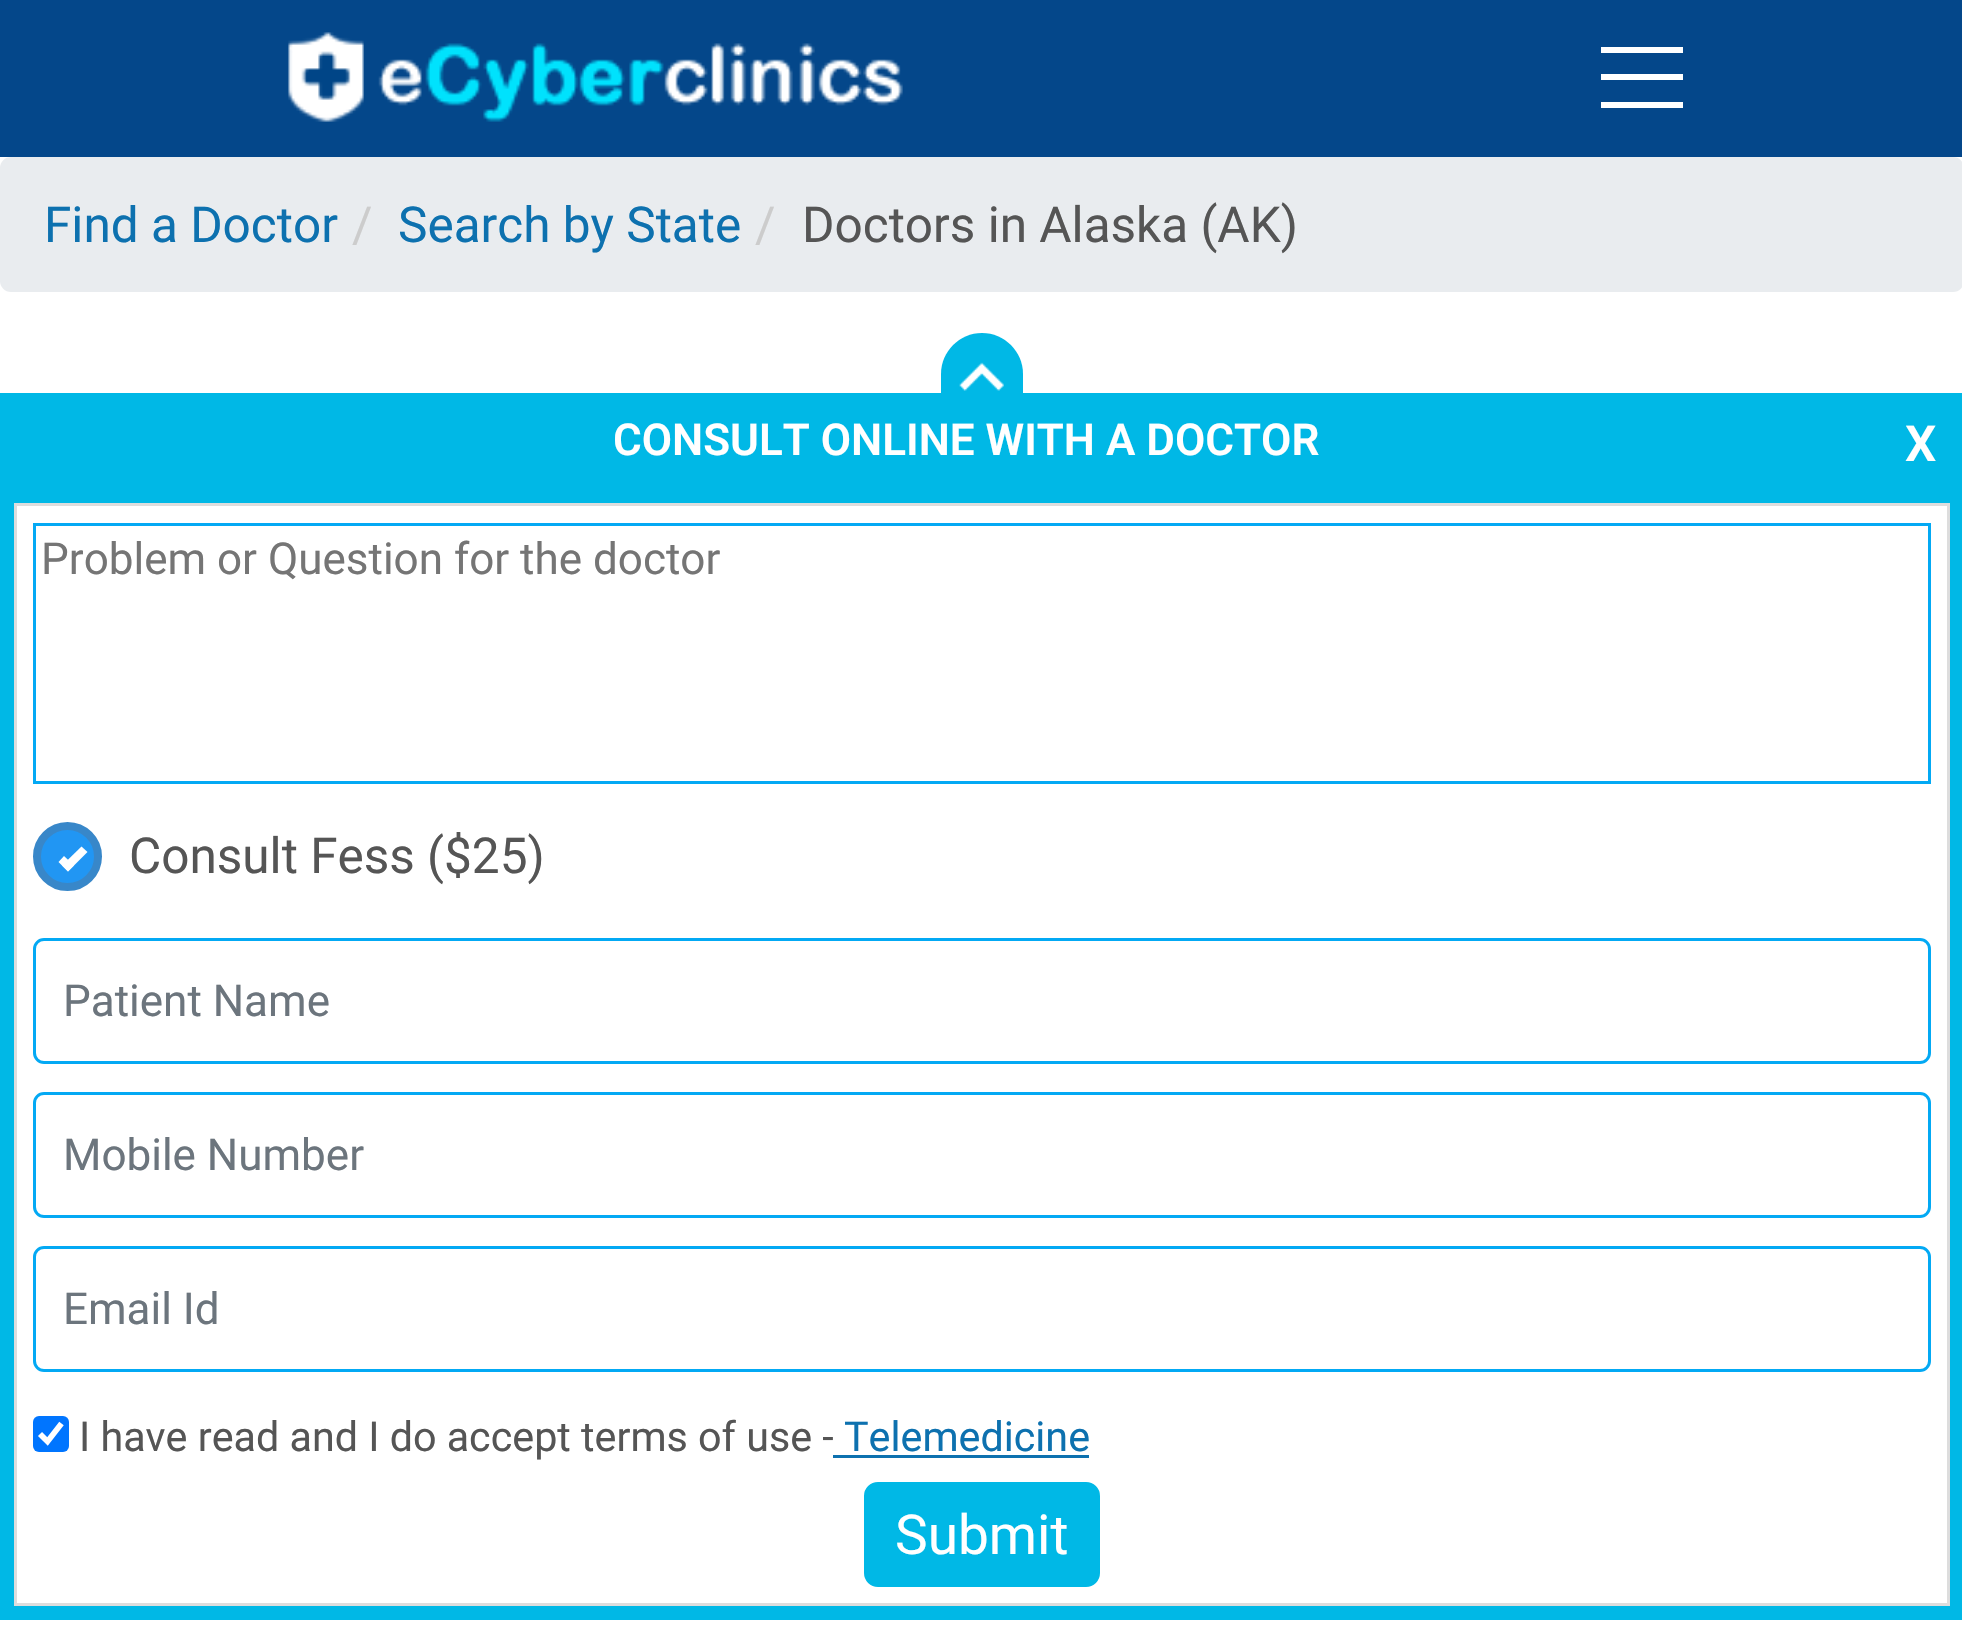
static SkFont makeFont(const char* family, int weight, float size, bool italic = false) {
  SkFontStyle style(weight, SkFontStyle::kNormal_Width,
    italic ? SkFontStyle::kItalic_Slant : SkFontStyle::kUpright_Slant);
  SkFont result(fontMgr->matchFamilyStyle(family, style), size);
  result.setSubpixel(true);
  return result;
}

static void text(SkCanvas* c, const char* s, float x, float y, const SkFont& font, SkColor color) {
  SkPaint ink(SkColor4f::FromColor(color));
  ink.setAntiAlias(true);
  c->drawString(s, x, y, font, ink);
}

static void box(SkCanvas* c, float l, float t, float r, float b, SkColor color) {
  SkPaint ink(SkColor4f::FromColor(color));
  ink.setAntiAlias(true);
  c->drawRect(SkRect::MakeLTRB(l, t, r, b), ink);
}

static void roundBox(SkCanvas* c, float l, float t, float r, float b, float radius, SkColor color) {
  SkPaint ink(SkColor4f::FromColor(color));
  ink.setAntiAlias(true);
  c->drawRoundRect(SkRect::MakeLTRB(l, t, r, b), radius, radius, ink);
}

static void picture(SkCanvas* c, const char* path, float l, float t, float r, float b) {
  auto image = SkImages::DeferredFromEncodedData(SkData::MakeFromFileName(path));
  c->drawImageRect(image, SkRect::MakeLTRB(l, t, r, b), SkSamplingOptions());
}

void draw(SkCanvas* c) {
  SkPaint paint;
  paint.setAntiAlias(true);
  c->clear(0xffffffff);
  box(c, 0, 0, 1962, 157, 0xff04478a);
  picture(c, "img_01.png", 288, 32, 903, 122);
  box(c, 1601, 74, 1683, 80, 0xffffffff);
  box(c, 1601, 47, 1683, 53, 0xffffffff);
  box(c, 1601, 102, 1683, 108, 0xffffffff);
  roundBox(c, 0, 157, 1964, 292, 11, 0xffe9ecef);
  SkFont face1 = makeFont("Roboto", 400, 49.5f);
  text(c, "Find a Doctor", 44, 242, face1, 0xff0d71af);
  text(c, "/", 352, 242, face1, 0xffcccccc);
  text(c, "Search by State", 398, 242, face1, 0xff0d71af);
  text(c, "/", 755, 242, face1, 0xffcccccc);
  text(c, "Doctors in Alaska (AK)", 802, 242, face1, 0xff555555);
  box(c, 0, 393, 1962, 1620, 0xff00b8e6);
  paint.setColor(0xff00b8e6);
  c->drawPath(SkPathBuilder().moveTo(982, 333).cubicTo(1004.5f, 333, 1023, 351.5f, 1023, 374).lineTo(1023, 415).lineTo(941, 415).lineTo(941, 374).cubicTo(941, 351.5f, 959.5f, 333, 982, 333).close().detach(), paint);
  picture(c, "img_02.png", 959, 362, 1004, 391);
  SkFont face2 = makeFont("Roboto", 600, 44);
  text(c, "CONSULT ONLINE WITH A DOCTOR", 613, 455, face2, 0xffffffff);
  SkFont face3 = makeFont("Roboto", 600, 49.5f);
  text(c, "X", 1905, 461, face3, 0xffffffff);
  paint.setColor(0xffffffff);
  c->drawRect(SkRect::MakeLTRB(15.5f, 504.5f, 1948.5f, 1604.5f), paint);
  paint.setStyle(SkPaint::kStroke_Style);
  paint.setStrokeWidth(3);
  paint.setColor(0xffdddddd);
  c->drawRect(SkRect::MakeLTRB(15.5f, 504.5f, 1948.5f, 1604.5f), paint);
  paint.setColor(0xff03a9f4);
  c->drawRect(SkRect::MakeLTRB(34.5f, 524.5f, 1929.5f, 782.5f), paint);
  SkFont face4 = makeFont("Roboto", 400, 44);
  text(c, "Problem or Question for the doctor", 41, 574, face4, 0xff757575);
  paint.setStyle(SkPaint::kFill_Style);
  paint.setColor(0xff2196f3);
  c->drawCircle(67.5f, 856.5f, 30.5f, paint);
  paint.setStyle(SkPaint::kStroke_Style);
  paint.setStrokeWidth(8);
  paint.setColor(0xff3887c9);
  c->drawCircle(67.5f, 856.5f, 30.5f, paint);
  paint.setStyle(SkPaint::kFill_Style);
  paint.setColor(0xffffffff);
  c->drawPath(SkPathBuilder().moveTo(81.5f, 846.5f).lineTo(87.5f, 852).lineTo(68, 871.5f).lineTo(62, 865.5f).close().detach(), paint);
  c->drawPath(SkPathBuilder().moveTo(64, 856).lineTo(74, 865.5f).lineTo(68, 871.5f).lineTo(58.5f, 862).close().detach(), paint);
  text(c, "Consult Fess ($25)", 129, 873, face1, 0xff555555);
  paint.setStyle(SkPaint::kStroke_Style);
  paint.setStrokeWidth(3);
  paint.setColor(0xff03a9f4);
  c->drawRoundRect(SkRect::MakeLTRB(34.5f, 939.5f, 1929.5f, 1062.5f), 9.5f, 9.5f, paint);
  text(c, "Patient Name", 63, 1016, face4, 0xff6c757d);
  c->drawRoundRect(SkRect::MakeLTRB(34.5f, 1093.5f, 1929.5f, 1216.5f), 9.5f, 9.5f, paint);
  text(c, "Mobile Number", 63, 1170, face4, 0xff6c757d);
  c->drawRoundRect(SkRect::MakeLTRB(34.5f, 1247.5f, 1929.5f, 1370.5f), 9.5f, 9.5f, paint);
  text(c, "Email Id", 63, 1324, face4, 0xff6c757d);
  roundBox(c, 33, 1416, 69, 1452, 6, 0xff0075ff);
  paint.setStrokeWidth(5.7f);
  paint.setColor(0xffffffff);
  c->drawPath(SkPathBuilder().moveTo(40, 1434).lineTo(47.5f, 1441.5f).lineTo(61.5f, 1423.5f).detach(), paint);
  SkFont face5 = makeFont("Roboto", 400, 41.25f);
  text(c, "I have read and I do accept terms of use -", 79, 1451, face5, 0xff555555);
  box(c, 833, 1455, 1089, 1458, 0xff0d71af);
  text(c, "Telemedicine", 844, 1451, face5, 0xff0d71af);
  paint.setStyle(SkPaint::kFill_Style);
  paint.setColor(0xff00b8e6);
  c->drawRoundRect(SkRect::MakeLTRB(865.5f, 1483.5f, 1098.5f, 1585.5f), 12.5f, 12.5f, paint);
  paint.setStyle(SkPaint::kStroke_Style);
  paint.setStrokeWidth(3);
  c->drawRoundRect(SkRect::MakeLTRB(865.5f, 1483.5f, 1098.5f, 1585.5f), 12.5f, 12.5f, paint);
  SkFont face6 = makeFont("Roboto", 400, 55);
  text(c, "Submit", 895, 1554, face6, 0xffffffff);
}
